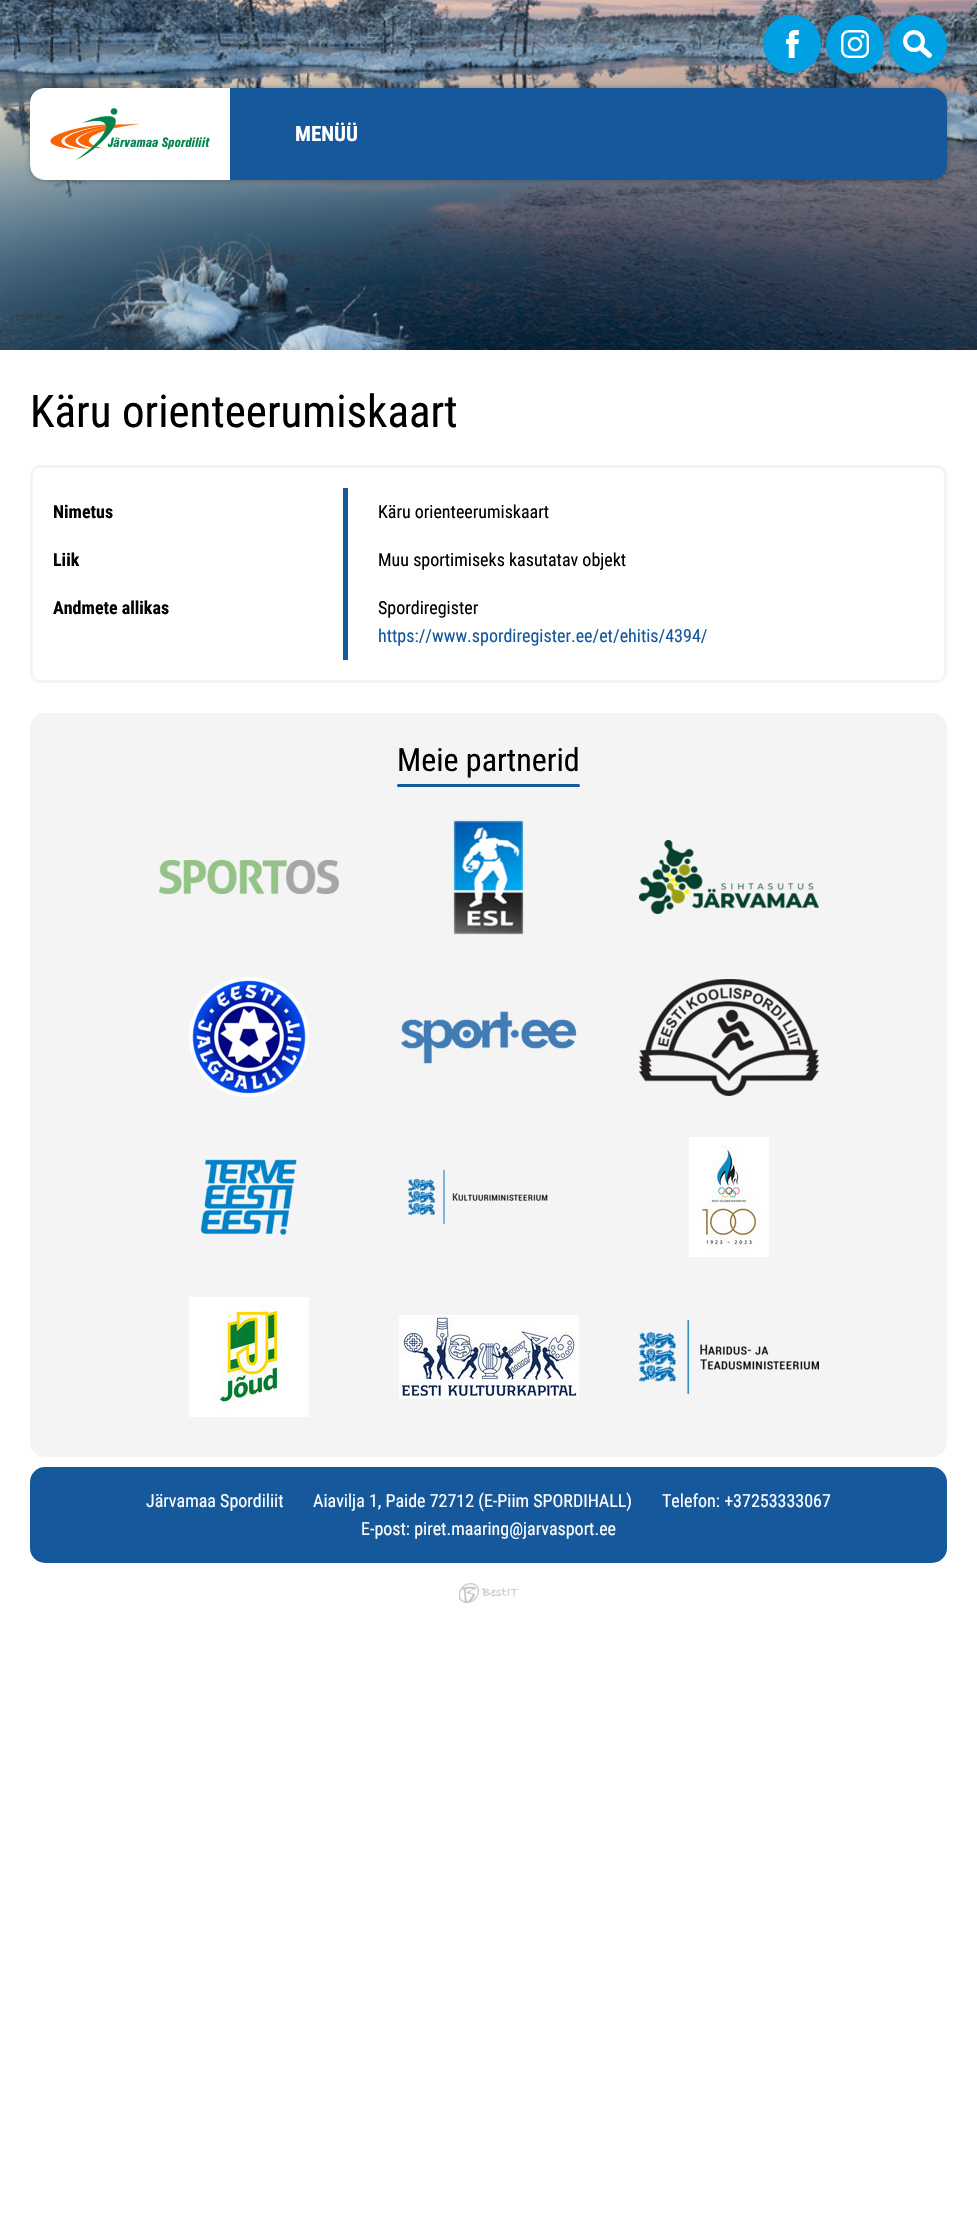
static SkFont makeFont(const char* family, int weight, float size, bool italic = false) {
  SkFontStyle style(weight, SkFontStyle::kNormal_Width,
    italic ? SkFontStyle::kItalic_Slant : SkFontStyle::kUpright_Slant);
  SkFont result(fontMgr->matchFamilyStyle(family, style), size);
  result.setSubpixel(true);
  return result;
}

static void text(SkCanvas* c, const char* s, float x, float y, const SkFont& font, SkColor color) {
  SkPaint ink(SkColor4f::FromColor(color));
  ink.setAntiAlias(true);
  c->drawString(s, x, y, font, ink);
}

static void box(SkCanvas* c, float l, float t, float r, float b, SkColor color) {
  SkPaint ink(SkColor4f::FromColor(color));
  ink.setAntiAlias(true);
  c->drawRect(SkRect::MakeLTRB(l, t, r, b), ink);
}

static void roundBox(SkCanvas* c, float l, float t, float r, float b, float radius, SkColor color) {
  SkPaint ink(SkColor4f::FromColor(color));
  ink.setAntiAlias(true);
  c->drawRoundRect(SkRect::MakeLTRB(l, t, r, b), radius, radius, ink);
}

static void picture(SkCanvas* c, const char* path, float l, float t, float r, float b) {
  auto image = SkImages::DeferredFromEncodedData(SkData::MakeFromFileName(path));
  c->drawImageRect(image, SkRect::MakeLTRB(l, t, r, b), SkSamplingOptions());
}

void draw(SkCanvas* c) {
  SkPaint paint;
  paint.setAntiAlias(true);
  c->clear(0xffffffff);
  picture(c, "img_01.png", 0, 0, 977, 350);
  paint.setColor(0xff01a0e2);
  c->drawCircle(792, 44, 29, paint);
  picture(c, "img_02.png", 786, 30, 799, 58);
  c->drawCircle(855, 44, 29, paint);
  picture(c, "img_03.png", 841, 30, 869, 58);
  c->drawCircle(918, 44, 29, paint);
  picture(c, "img_04.png", 903, 30, 932, 58);
  paint.setColor(0xff000000);
  paint.setMaskFilter(SkMaskFilter::MakeBlur(kNormal_SkBlurStyle, 4));
  c->drawRoundRect(SkRect::MakeLTRB(34, 92, 943, 176), 11, 11, paint);
  paint.setMaskFilter(nullptr);
  roundBox(c, 30, 88, 947, 180, 15, 0xff15589c);
  paint.setColor(0xffffffff);
  c->drawPath(SkPathBuilder().moveTo(45, 88).lineTo(230, 88).lineTo(230, 180).lineTo(45, 180).cubicTo(36.5f, 180, 30, 173.5f, 30, 165).lineTo(30, 103).cubicTo(30, 94.5f, 36.5f, 88, 45, 88).close().detach(), paint);
  picture(c, "img_05.png", 50, 108, 210, 160);
  SkFont face1 = makeFont("Roboto Condensed", 700, 21);
  text(c, "MENÜÜ", 295, 141, face1, 0xffffffff);
  SkFont face2 = makeFont("Roboto Condensed", 400, 45);
  text(c, "Käru orienteerumiskaart", 30, 427, face2, 0xff000000);
  paint.setStyle(SkPaint::kStroke_Style);
  paint.setStrokeWidth(3);
  paint.setColor(0xfff4f4f4);
  c->drawRoundRect(SkRect::MakeLTRB(31.5f, 466.5f, 945.5f, 681.5f), 8.5f, 8.5f, paint);
  box(c, 343, 488, 348, 660, 0xff15589c);
  SkFont face3 = makeFont("Roboto Condensed", 700, 18);
  text(c, "Nimetus", 53, 518, face3, 0xff000000);
  SkFont face4 = makeFont("Roboto Condensed", 400, 18);
  text(c, "Käru orienteerumiskaart", 378, 518, face4, 0xff000000);
  text(c, "Liik", 53, 566, face3, 0xff000000);
  text(c, "Muu sportimiseks kasutatav objekt", 378, 566, face4, 0xff000000);
  text(c, "Andmete allikas", 53, 614, face3, 0xff000000);
  text(c, "Spordiregister", 378, 614, face4, 0xff000000);
  text(c, "https://www.spordiregister.ee/et/ehitis/4394/", 378, 642, face4, 0xff15589c);
  roundBox(c, 30, 713, 947, 1457, 15, 0xfff4f4f4);
  SkFont face5 = makeFont("Roboto Condensed", 400, 32);
  text(c, "Meie partnerid", 397, 771, face5, 0xff000000);
  roundBox(c, 397, 784, 580, 787, 1.5f, 0xff15589c);
  picture(c, "img_06.png", 159, 860, 339, 894);
  picture(c, "img_07.png", 453, 820, 524, 935);
  picture(c, "img_08.png", 639, 840, 819, 914);
  picture(c, "img_09.png", 189, 977, 309, 1097);
  picture(c, "img_10.png", 401, 1011, 577, 1064);
  picture(c, "img_11.png", 639, 979, 819, 1096);
  picture(c, "img_12.png", 200, 1159, 297, 1235);
  picture(c, "img_13.png", 407, 1169, 548, 1225);
  picture(c, "img_14.png", 689, 1137, 769, 1257);
  picture(c, "img_15.png", 189, 1297, 309, 1417);
  picture(c, "img_16.png", 399, 1315, 579, 1399);
  picture(c, "img_17.png", 639, 1320, 819, 1394);
  roundBox(c, 30, 1467, 947, 1563, 15, 0xff15589c);
  text(c, "Järvamaa Spordiliit", 146, 1507, face4, 0xffffffff);
  text(c, "Aiavilja 1, Paide 72712 (E-Piim SPORDIHALL)", 313, 1507, face4, 0xffffffff);
  text(c, "Telefon: +37253333067", 662, 1507, face4, 0xffffffff);
  text(c, "E-post: piret.maaring@jarvasport.ee", 361, 1535, face4, 0xffffffff);
  picture(c, "img_18.png", 459, 1583, 519, 1603);
}
